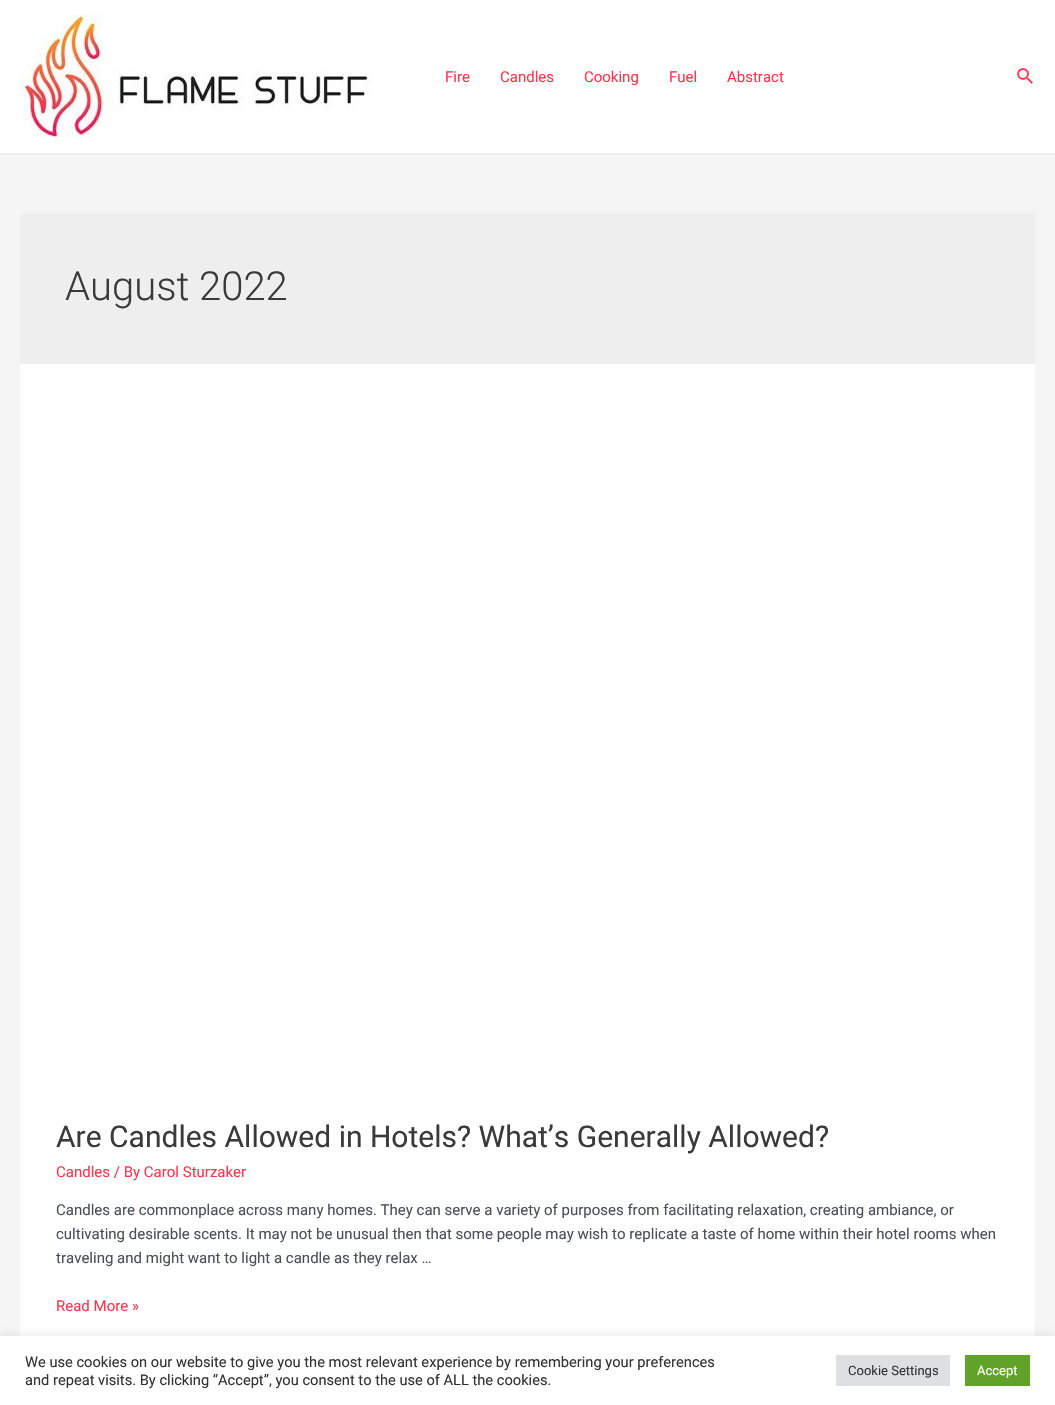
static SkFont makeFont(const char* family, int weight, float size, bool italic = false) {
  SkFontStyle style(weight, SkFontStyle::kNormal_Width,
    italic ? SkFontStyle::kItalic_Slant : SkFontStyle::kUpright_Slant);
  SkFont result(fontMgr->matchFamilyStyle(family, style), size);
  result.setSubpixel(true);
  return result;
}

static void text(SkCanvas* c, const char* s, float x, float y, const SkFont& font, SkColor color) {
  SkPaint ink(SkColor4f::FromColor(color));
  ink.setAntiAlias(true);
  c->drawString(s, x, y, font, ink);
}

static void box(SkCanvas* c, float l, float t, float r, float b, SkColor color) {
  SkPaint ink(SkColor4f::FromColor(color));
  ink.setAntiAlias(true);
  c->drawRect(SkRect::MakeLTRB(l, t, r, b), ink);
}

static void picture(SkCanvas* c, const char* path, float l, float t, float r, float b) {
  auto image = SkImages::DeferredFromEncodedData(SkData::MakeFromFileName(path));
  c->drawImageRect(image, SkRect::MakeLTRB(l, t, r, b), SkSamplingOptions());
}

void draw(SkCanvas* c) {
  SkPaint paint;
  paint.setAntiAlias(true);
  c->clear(0xfff5f5f5);
  box(c, 0, 0, 1055, 153, 0xffffffff);
  box(c, 0, 153, 1055, 154, 0xffeaeaea);
  picture(c, "img_01.png", 20, 15, 372, 138);
  SkFont face1 = makeFont("Roboto", 400, 15);
  text(c, "Fire", 445, 82, face1, 0xfffe354d);
  text(c, "Candles", 500, 82, face1, 0xfffe354d);
  text(c, "Cooking", 584, 82, face1, 0xfffe354d);
  text(c, "Fuel", 669, 82, face1, 0xfffe354d);
  text(c, "Abstract", 727, 82, face1, 0xfffe354d);
  picture(c, "img_02.png", 1017, 68, 1033, 84);
  box(c, 20, 214, 1035, 364, 0xffeeeeee);
  SkFont face2 = makeFont("Roboto", 300, 40);
  text(c, "August 2022", 65, 300, face2, 0xff3a3a3a);
  box(c, 20, 364, 1035, 1336, 0xffffffff);
  SkFont face3 = makeFont("Roboto", 400, 30);
  text(c, "Are Candles Allowed in Hotels? What’s Generally Allowed?", 56, 1147, face3, 0xff3a3a3a);
  text(c, "Candles / By Carol Sturzaker", 56, 1177, face1, 0xfffe354d);
  text(c, "Candles are commonplace across many homes. They can serve a variety of purposes from facilitating relaxation, creating ambiance, or", 56, 1215, face1, 0xff4b4f58);
  text(c, "cultivating desirable scents. It may not be unusual then that some people may wish to replicate a taste of home within their hotel rooms when", 56, 1239, face1, 0xff4b4f58);
  text(c, "traveling and might want to light a candle as they relax …", 56, 1263, face1, 0xff4b4f58);
  text(c, "Read More »", 56, 1311, face1, 0xfffe354d);
  paint.setColor(0x4dacabab);
  paint.setMaskFilter(SkMaskFilter::MakeBlur(kNormal_SkBlurStyle, 5));
  c->drawRect(SkRect::MakeLTRB(0, 1335, 1055, 1404), paint);
  paint.setMaskFilter(nullptr);
  box(c, 0, 1336, 1055, 1405, 0xffffffff);
  SkFont face4 = makeFont("Roboto", 400, 14.65f);
  text(c, "We use cookies on our website to give you the most relevant experience by remembering your preferences", 25, 1367, face4, 0xff333333);
  text(c, "and repeat visits. By clicking “Accept”, you consent to the use of ALL the cookies.", 25, 1385, face4, 0xff333333);
  box(c, 836, 1355, 950, 1386, 0xffdedfe0);
  SkFont face5 = makeFont("Roboto", 400, 13);
  text(c, "Cookie Settings", 848, 1375, face5, 0xff333333);
  box(c, 965, 1355, 1030, 1386, 0xff61a229);
  text(c, "Accept", 977, 1375, face5, 0xffffffff);
}
